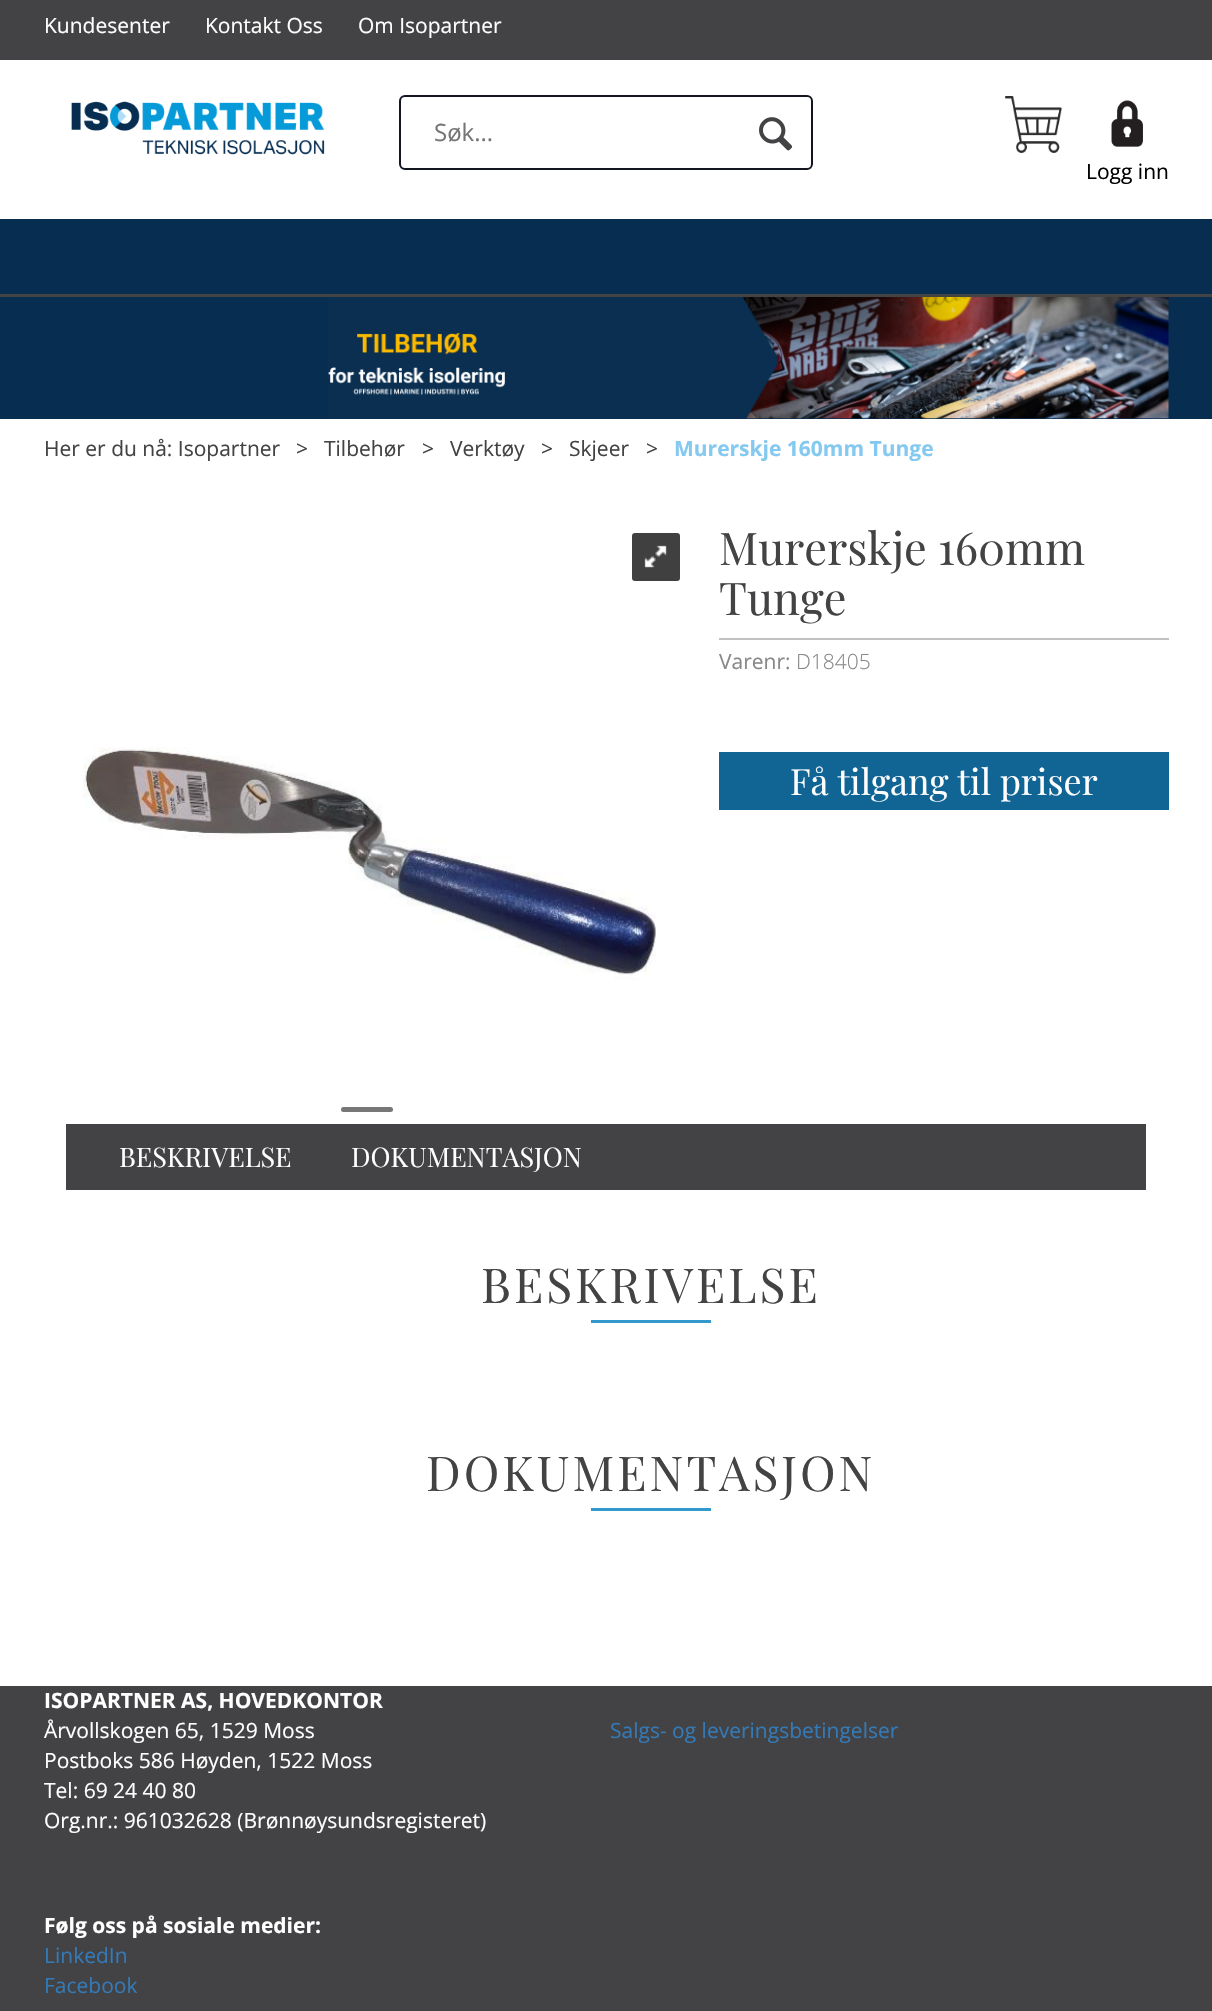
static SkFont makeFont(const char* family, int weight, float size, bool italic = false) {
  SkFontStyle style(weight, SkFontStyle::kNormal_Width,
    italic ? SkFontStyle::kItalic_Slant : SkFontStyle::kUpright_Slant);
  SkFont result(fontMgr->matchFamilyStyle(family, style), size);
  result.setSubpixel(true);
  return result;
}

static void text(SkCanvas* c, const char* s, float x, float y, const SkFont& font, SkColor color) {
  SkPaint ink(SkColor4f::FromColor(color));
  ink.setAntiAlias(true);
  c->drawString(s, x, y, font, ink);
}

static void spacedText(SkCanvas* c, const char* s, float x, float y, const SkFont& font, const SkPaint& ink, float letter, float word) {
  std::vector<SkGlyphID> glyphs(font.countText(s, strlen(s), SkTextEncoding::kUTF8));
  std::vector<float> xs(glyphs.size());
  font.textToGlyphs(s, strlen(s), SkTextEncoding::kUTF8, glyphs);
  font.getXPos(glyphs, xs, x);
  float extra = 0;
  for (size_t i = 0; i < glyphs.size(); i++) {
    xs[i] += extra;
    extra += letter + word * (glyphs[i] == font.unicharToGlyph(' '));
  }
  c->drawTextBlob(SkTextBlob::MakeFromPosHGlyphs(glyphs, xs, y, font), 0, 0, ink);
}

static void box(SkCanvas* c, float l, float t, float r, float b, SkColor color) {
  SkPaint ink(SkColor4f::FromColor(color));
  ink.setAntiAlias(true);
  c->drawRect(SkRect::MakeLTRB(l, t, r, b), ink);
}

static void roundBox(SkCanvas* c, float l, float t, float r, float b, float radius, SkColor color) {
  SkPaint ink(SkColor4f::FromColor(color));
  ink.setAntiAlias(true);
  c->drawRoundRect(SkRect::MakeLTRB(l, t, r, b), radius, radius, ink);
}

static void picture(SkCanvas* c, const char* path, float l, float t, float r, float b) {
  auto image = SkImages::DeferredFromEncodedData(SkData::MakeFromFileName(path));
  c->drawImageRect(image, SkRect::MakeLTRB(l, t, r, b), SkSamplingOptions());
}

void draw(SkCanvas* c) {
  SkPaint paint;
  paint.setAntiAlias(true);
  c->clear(0xffffffff);
  box(c, 0, 0, 1212, 60, 0xff434244);
  SkFont face1 = makeFont("Open Sans", 400, 21);
  text(c, "Kundesenter", 44, 33, face1, 0xffffffff);
  text(c, "Kontakt Oss", 205, 33, face1, 0xffffffff);
  text(c, "Om Isopartner", 358, 33, face1, 0xffffffff);
  picture(c, "img_01.png", 71, 101, 325, 155);
  paint.setStyle(SkPaint::kStroke_Style);
  paint.setStrokeWidth(2);
  paint.setColor(0xff131621);
  c->drawRoundRect(SkRect::MakeLTRB(400, 96, 812, 169), 5, 5, paint);
  SkFont face2 = makeFont("Open Sans", 400, 24);
  text(c, "Søk...", 434, 141, face2, 0xff757575);
  picture(c, "img_02.png", 759, 117, 793, 151);
  picture(c, "img_03.png", 1005, 96, 1062, 153);
  picture(c, "img_04.png", 1111, 100, 1143, 147);
  text(c, "Logg inn", 1086, 179, face1, 0xff000000);
  box(c, 0, 219, 1212, 294, 0xff072d51);
  box(c, 0, 294, 1212, 297, 0xff434343);
  box(c, 0, 297, 1212, 419, 0xff072d51);
  picture(c, "img_05.png", 328, 297, 1169, 419);
  text(c, "Her er du nå: Isopartner", 44, 456, face1, 0xff434244);
  text(c, ">", 296, 456, face1, 0xff434244);
  text(c, "Tilbehør", 324, 456, face1, 0xff434244);
  text(c, ">", 422, 456, face1, 0xff434244);
  text(c, "Verktøy", 450, 456, face1, 0xff434244);
  text(c, ">", 541, 456, face1, 0xff434244);
  text(c, "Skjeer", 569, 456, face1, 0xff434244);
  text(c, ">", 646, 456, face1, 0xff434244);
  SkFont face3 = makeFont("Open Sans", 700, 21);
  text(c, "Murerskje 160mm Tunge", 674, 456, face3, 0xff84c9f0);
  roundBox(c, 632, 533, 680, 581, 3, 0xff404040);
  picture(c, "img_06.png", 644, 545, 667, 568);
  picture(c, "img_07.png", 83, 747, 656, 980);
  roundBox(c, 341, 1107, 393, 1112, 2.5f, 0xff777777);
  box(c, 719, 638, 1169, 640, 0xffc0c2c0);
  SkFont face4 = makeFont("Playfair Display", 400, 45);
  text(c, "Murerskje 160mm", 719, 565, face4, 0xff434244);
  text(c, "Tunge", 719, 615, face4, 0xff434244);
  text(c, "Varenr:", 719, 669, face1, 0xff888888);
  SkFont face5 = makeFont("Open Sans", 300, 21);
  text(c, "D18405", 796, 669, face5, 0xff888888);
  box(c, 719, 752, 1169, 810, 0xff106595);
  SkFont face6 = makeFont("Playfair Display", 400, 36);
  text(c, "Få tilgang til priser", 790, 795, face6, 0xffffffff);
  box(c, 66, 1124, 1146, 1190, 0xff434244);
  SkFont face7 = makeFont("Playfair Display", 400, 27);
  text(c, "BESKRIVELSE", 119, 1167, face7, 0xffffffff);
  text(c, "DOKUMENTASJON", 351, 1167, face7, 0xffffffff);
  SkFont face8 = makeFont("Playfair Display", 400, 48);
  paint.setStyle(SkPaint::kFill_Style);
  paint.setColor(0xff434244);
  spacedText(c, "BESKRIVELSE", 481, 1303, face8, paint, 3, 0);
  box(c, 591, 1320, 711, 1323, 0xff3399cc);
  spacedText(c, "DOKUMENTASJON", 426, 1491, face8, paint, 3, 0);
  box(c, 591, 1508, 711, 1511, 0xff3399cc);
  box(c, 0, 1686, 1212, 2011, 0xff434244);
  text(c, "ISOPARTNER AS, HOVEDKONTOR", 44, 1708, face3, 0xffffffff);
  text(c, "Årvollskogen 65, 1529 Moss", 44, 1738, face1, 0xffffffff);
  text(c, "Postboks 586 Høyden, 1522 Moss", 44, 1768, face1, 0xffffffff);
  text(c, "Tel: 69 24 40 80", 44, 1798, face1, 0xffffffff);
  text(c, "Org.nr.: 961032628 (Brønnøysundsregisteret)", 44, 1828, face1, 0xffffffff);
  text(c, "Salgs- og leveringsbetingelser", 610, 1738, face1, 0xff337ab7);
  text(c, "Følg oss på sosiale medier:", 44, 1933, face3, 0xffffffff);
  text(c, "LinkedIn", 44, 1963, face1, 0xff337ab7);
  text(c, "Facebook", 44, 1993, face1, 0xff337ab7);
}
